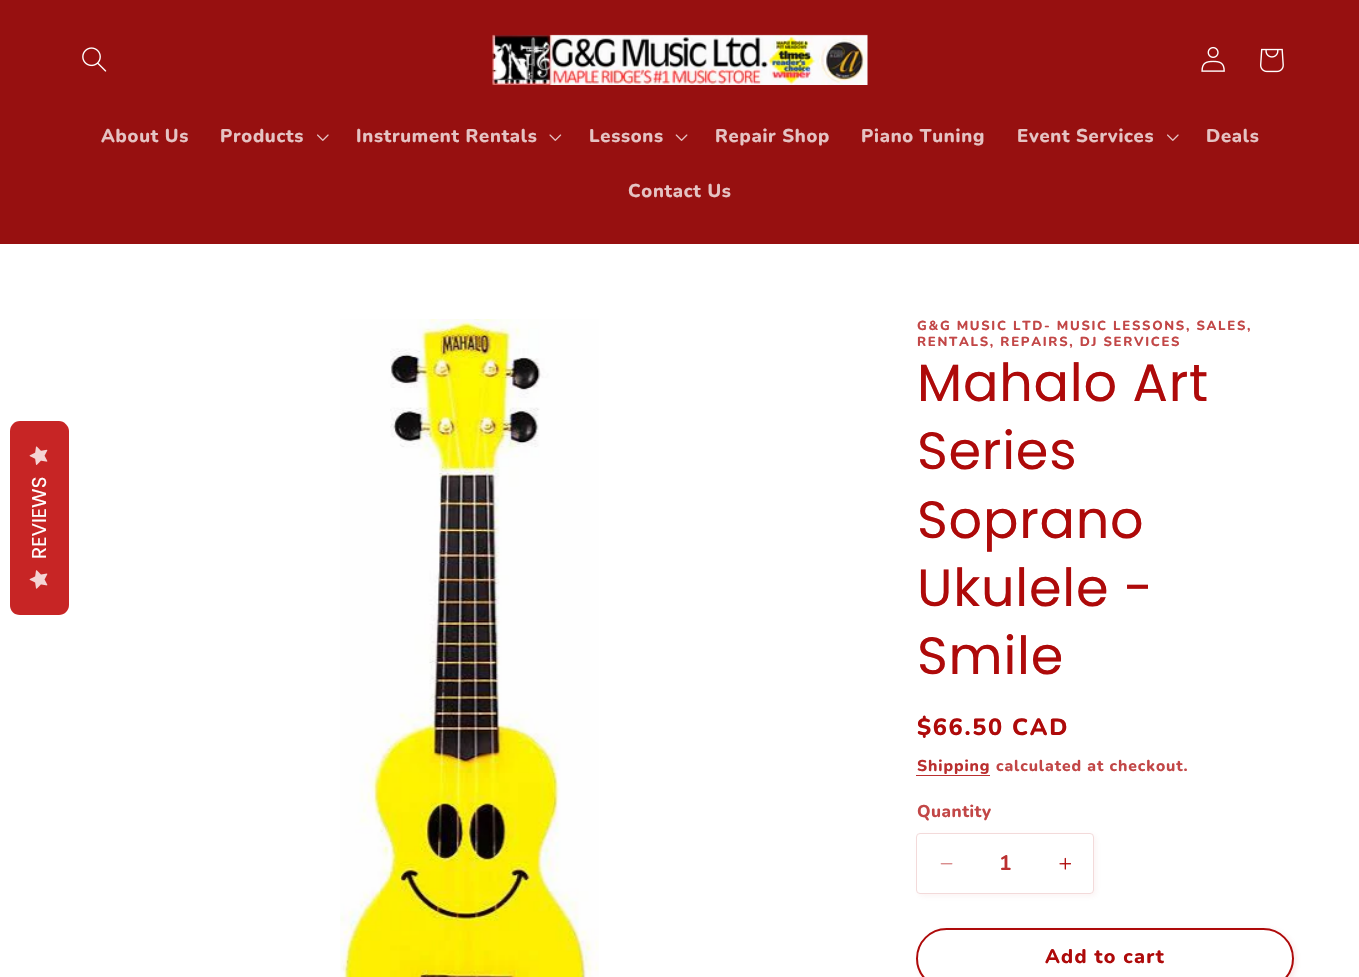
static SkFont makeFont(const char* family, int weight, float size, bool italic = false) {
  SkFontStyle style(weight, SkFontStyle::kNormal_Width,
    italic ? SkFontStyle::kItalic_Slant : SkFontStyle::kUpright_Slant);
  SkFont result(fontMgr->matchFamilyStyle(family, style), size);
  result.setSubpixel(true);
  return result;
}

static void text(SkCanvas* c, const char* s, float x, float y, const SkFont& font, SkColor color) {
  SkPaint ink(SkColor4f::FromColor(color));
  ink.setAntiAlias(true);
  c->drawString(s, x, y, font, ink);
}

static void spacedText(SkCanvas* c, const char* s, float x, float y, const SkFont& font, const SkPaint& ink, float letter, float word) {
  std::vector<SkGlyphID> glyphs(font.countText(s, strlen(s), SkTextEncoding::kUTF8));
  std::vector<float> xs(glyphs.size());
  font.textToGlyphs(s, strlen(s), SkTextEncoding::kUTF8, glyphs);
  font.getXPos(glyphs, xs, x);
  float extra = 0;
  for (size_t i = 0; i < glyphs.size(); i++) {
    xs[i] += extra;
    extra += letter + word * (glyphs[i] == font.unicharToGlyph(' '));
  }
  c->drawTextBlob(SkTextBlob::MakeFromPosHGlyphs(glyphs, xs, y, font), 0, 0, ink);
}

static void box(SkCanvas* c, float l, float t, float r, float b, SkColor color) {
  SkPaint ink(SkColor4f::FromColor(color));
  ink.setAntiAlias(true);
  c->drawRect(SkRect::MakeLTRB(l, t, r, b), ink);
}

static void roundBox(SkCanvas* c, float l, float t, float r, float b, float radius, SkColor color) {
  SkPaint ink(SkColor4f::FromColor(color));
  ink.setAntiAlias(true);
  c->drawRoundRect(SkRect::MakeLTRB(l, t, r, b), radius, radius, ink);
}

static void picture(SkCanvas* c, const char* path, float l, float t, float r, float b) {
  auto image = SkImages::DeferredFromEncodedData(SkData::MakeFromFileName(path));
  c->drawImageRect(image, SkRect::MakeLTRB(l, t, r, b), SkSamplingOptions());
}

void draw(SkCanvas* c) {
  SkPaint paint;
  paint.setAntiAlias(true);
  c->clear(0xffffffff);
  box(c, 0, 0, 1359, 244, 0xff971010);
  picture(c, "img_01.png", 82, 47, 107, 72);
  picture(c, "img_02.png", 492, 34, 868, 85);
  picture(c, "img_03.png", 1201, 46, 1225, 72);
  picture(c, "img_04.png", 1260, 48, 1284, 73);
  SkFont face1 = makeFont("Nunito", 800, 18.4f);
  paint.setColor(0xffe5c3c3);
  spacedText(c, "About Us", 101, 142, face1, paint, 0.75f, 0);
  spacedText(c, "Products", 220, 142, face1, paint, 0.75f, 0);
  picture(c, "img_05.png", 317, 134, 329, 141);
  spacedText(c, "Instrument Rentals", 356, 142, face1, paint, 0.75f, 0);
  picture(c, "img_06.png", 549, 134, 562, 141);
  spacedText(c, "Lessons", 589, 142, face1, paint, 0.75f, 0);
  picture(c, "img_07.png", 675, 134, 688, 141);
  spacedText(c, "Repair Shop", 715, 142, face1, paint, 0.75f, 0);
  spacedText(c, "Piano Tuning", 861, 142, face1, paint, 0.75f, 0);
  spacedText(c, "Event Services", 1017, 142, face1, paint, 0.75f, 0);
  picture(c, "img_05.png", 1167, 134, 1179, 141);
  spacedText(c, "Deals", 1206, 142, face1, paint, 0.75f, 0);
  spacedText(c, "Contact Us", 628, 197, face1, paint, 0.75f, 0);
  paint.setColor(0xffc72525);
  c->drawPath(SkPathBuilder().moveTo(10, 605).lineTo(10, 431).cubicTo(10, 426, 14, 421, 20, 421).lineTo(59, 421).cubicTo(64, 421, 69, 426, 69, 431).lineTo(69, 605).cubicTo(69, 611, 64, 615, 59, 615).lineTo(20, 615).cubicTo(14, 615, 10, 611, 10, 605).close().detach(), paint);
  picture(c, "img_08.png", 29, 446, 48, 465);
  SkFont face2 = makeFont("Poppins", 400, 20);
  c->save();
  c->rotate(-90, 46, 559);
  text(c, "REVIEWS", 46, 559, face2, 0xffffffff);
  c->restore();
  picture(c, "img_09.png", 29, 570, 48, 589);
  picture(c, "img_10.png", 340, 319, 599, 977);
  SkFont face3 = makeFont("Nunito", 800, 13.1f);
  paint.setColor(0xffc24747);
  spacedText(c, "G&G MUSIC LTD- MUSIC LESSONS, SALES,", 917, 330, face3, paint, 1.7f, 0);
  spacedText(c, "RENTALS, REPAIRS, DJ SERVICES", 917, 346, face3, paint, 1.7f, 0);
  SkFont face4 = makeFont("Poppins", 400, 52.5f);
  paint.setColor(0xffae0a0a);
  spacedText(c, "Mahalo Art", 917, 401, face4, paint, 0.75f, 0);
  spacedText(c, "Series", 917, 469, face4, paint, 0.75f, 0);
  spacedText(c, "Soprano", 917, 538, face4, paint, 0.75f, 0);
  spacedText(c, "Ukulele -", 917, 606, face4, paint, 0.75f, 0);
  spacedText(c, "Smile", 917, 674, face4, paint, 0.75f, 0);
  SkFont face5 = makeFont("Nunito", 800, 23.5f);
  spacedText(c, "$66.50 CAD", 917, 735, face5, paint, 1.7f, 0);
  SkFont face6 = makeFont("Nunito", 800, 15.75f);
  paint.setColor(0xffba2f2f);
  spacedText(c, "Shipping", 917, 771, face6, paint, 0.9f, 0);
  box(c, 916, 775, 990, 776, 0xffba2f2f);
  paint.setColor(0xffc24747);
  spacedText(c, "calculated at checkout.", 996, 771, face6, paint, 0.9f, 0);
  SkFont face7 = makeFont("Nunito", 800, 17);
  spacedText(c, "Quantity", 917, 817, face7, paint, 0.5f, 0);
  paint.setColor(0x0dae0a0a);
  paint.setMaskFilter(SkMaskFilter::MakeBlur(kNormal_SkBlurStyle, 3));
  c->drawRoundRect(SkRect::MakeLTRB(919, 835, 1096, 896), 4, 4, paint);
  paint.setMaskFilter(nullptr);
  roundBox(c, 916, 833, 1094, 894, 4, 0xffffffff);
  picture(c, "img_11.png", 940, 863, 953, 865);
  picture(c, "img_12.png", 1059, 857, 1071, 870);
  paint.setStyle(SkPaint::kStroke_Style);
  paint.setStrokeWidth(1);
  paint.setColor(0xfff3dada);
  c->drawRoundRect(SkRect::MakeLTRB(916.5f, 833.5f, 1093.5f, 893.5f), 3.5f, 3.5f, paint);
  SkFont face8 = makeFont("Nunito", 700, 21);
  text(c, "1", 999, 870, face8, 0xffba2f2f);
  paint.setStyle(SkPaint::kFill_Style);
  paint.setColor(0x1aae0a0a);
  paint.setMaskFilter(SkMaskFilter::MakeBlur(kNormal_SkBlurStyle, 3));
  c->drawRoundRect(SkRect::MakeLTRB(919, 930, 1296, 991), 30.5f, 30.5f, paint);
  paint.setMaskFilter(nullptr);
  roundBox(c, 916, 928, 1294, 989, 30.5f, 0xffffffff);
  paint.setStyle(SkPaint::kStroke_Style);
  paint.setColor(0xffffffff);
  c->drawRoundRect(SkRect::MakeLTRB(916.5f, 928.5f, 1293.5f, 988.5f), 30, 30, paint);
  paint.setStrokeWidth(2);
  paint.setColor(0xffae0a0a);
  c->drawRoundRect(SkRect::MakeLTRB(917, 929, 1293, 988), 29.5f, 29.5f, paint);
  SkFont face9 = makeFont("Nunito", 800, 19.75f);
  paint.setStyle(SkPaint::kFill_Style);
  spacedText(c, "Add to cart", 1045, 963, face9, paint, 1.25f, 0);
}
